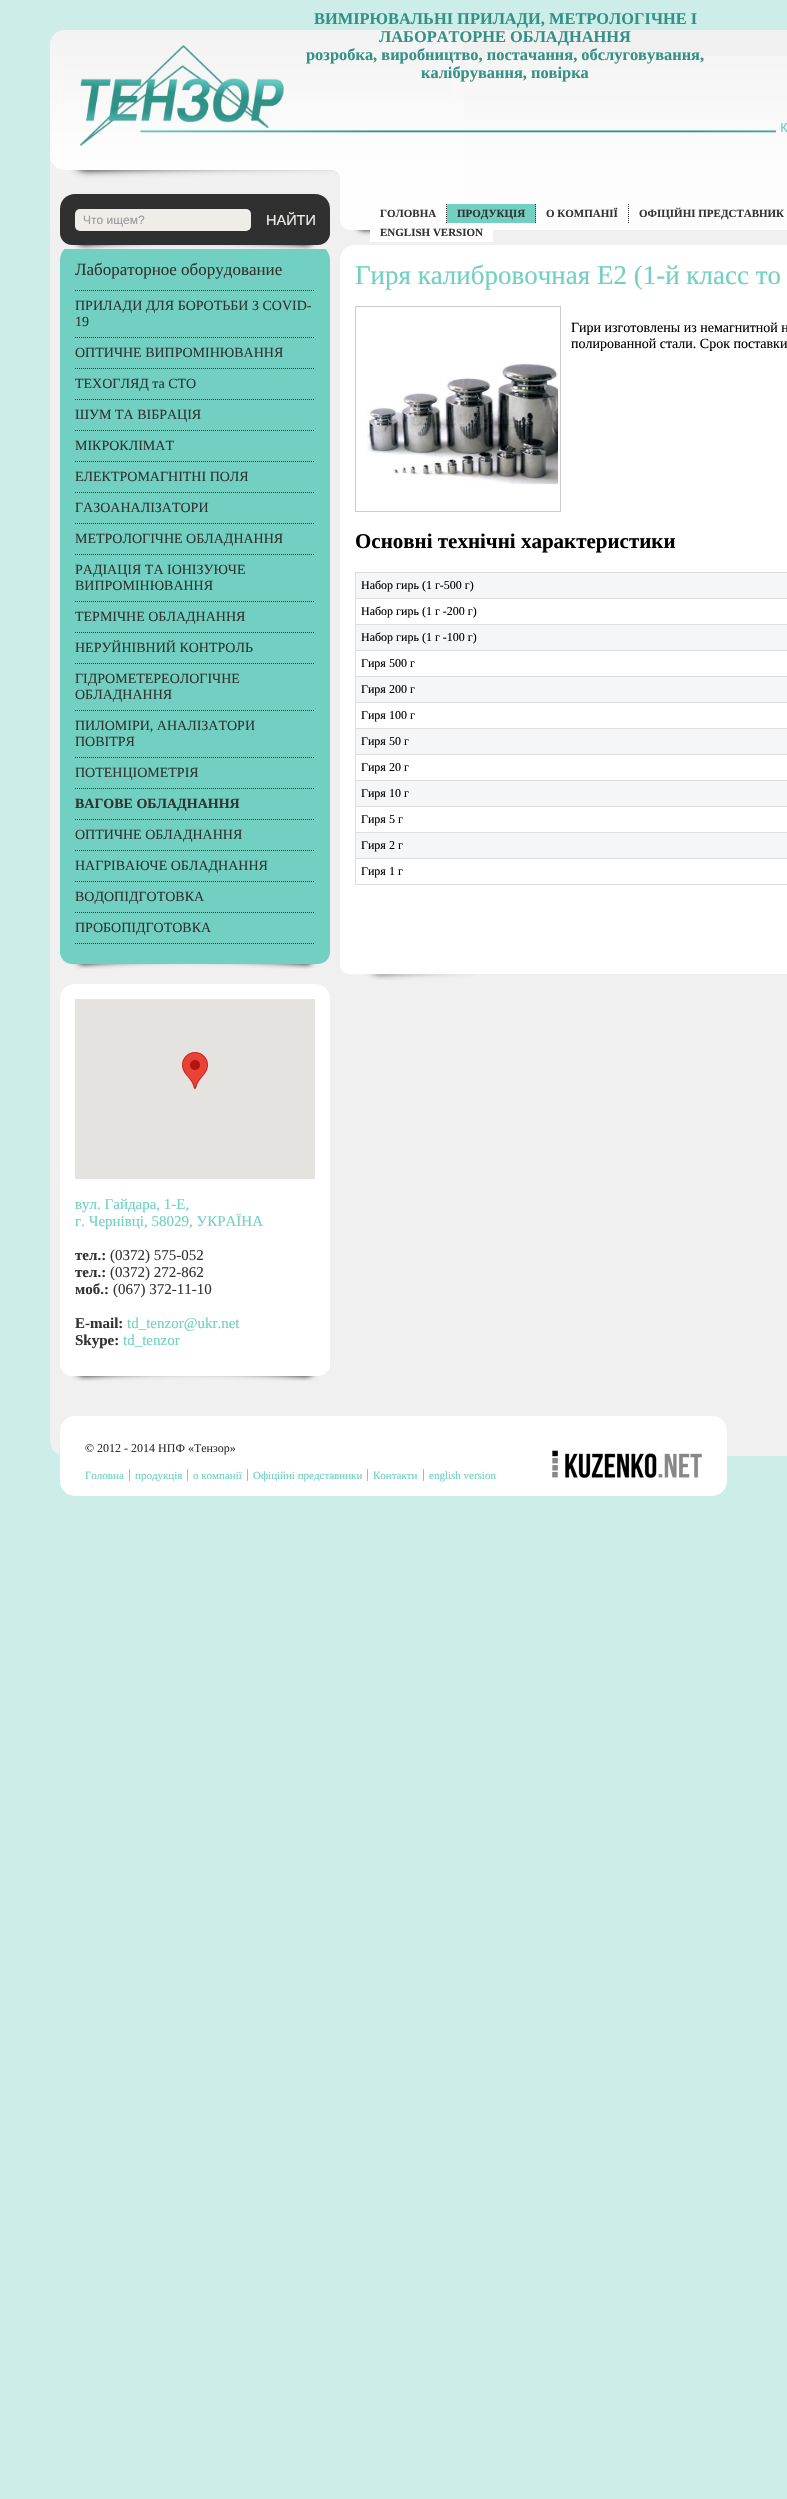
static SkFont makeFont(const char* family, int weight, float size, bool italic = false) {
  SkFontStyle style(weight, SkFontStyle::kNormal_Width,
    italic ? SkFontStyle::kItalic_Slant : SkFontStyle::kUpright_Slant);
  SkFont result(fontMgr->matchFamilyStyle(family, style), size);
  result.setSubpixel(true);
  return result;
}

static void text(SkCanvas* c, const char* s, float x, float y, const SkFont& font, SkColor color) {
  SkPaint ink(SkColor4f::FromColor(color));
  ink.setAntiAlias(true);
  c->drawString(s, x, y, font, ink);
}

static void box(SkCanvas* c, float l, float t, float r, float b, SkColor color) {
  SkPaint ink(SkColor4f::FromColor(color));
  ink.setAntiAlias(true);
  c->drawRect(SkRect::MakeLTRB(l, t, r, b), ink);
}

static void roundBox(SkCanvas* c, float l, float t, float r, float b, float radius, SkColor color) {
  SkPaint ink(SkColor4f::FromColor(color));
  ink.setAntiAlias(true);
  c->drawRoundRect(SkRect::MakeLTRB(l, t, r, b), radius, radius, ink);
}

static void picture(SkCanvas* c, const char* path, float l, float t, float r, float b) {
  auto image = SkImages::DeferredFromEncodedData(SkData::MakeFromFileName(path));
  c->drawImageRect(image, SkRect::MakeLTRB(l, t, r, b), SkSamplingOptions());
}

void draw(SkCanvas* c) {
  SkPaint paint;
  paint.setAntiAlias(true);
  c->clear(0xffccede8);
  paint.setColor(0xfff0f0f0);
  c->drawPath(SkPathBuilder().moveTo(50, 30).lineTo(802, 30).lineTo(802, 1441).cubicTo(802, 1449.5f, 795.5f, 1456, 787, 1456).lineTo(65, 1456).cubicTo(56.5f, 1456, 50, 1449.5f, 50, 1441).close().detach(), paint);
  picture(c, "img_01.png", 50, 56, 787, 230);
  picture(c, "img_02.png", 50, 30, 464, 236);
  SkFont face1 = makeFont("Liberation Serif", 700, 16.4f);
  text(c, "ВИМІРЮВАЛЬНІ ПРИЛАДИ, МЕТРОЛОГІЧНЕ І", 314, 24, face1, 0xff349186);
  picture(c, "img_03.png", 80, 45, 776, 146);
  text(c, "ЛАБОРАТОРНЕ ОБЛАДНАННЯ", 379, 42, face1, 0xff349186);
  text(c, "розробка, виробництво, постачання, обслуговування,", 306, 60, face1, 0xff349186);
  text(c, "калібрування, повірка", 421, 78, face1, 0xff349186);
  picture(c, "img_04.png", 781, 123, 787, 132);
  paint.setColor(0xff72d0c2);
  c->drawPath(SkPathBuilder().moveTo(75, 245).lineTo(315, 245).cubicTo(323.5f, 245, 330, 251.5f, 330, 260).lineTo(330, 969).lineTo(60, 969).lineTo(60, 260).cubicTo(60, 251.5f, 66.5f, 245, 75, 245).close().detach(), paint);
  paint.setColor(0xff303030);
  c->drawPath(SkPathBuilder().moveTo(75, 194).lineTo(315, 194).cubicTo(323.5f, 194, 330, 200.5f, 330, 209).lineTo(330, 249).lineTo(60, 249).lineTo(60, 209).cubicTo(60, 200.5f, 66.5f, 194, 75, 194).close().detach(), paint);
  picture(c, "img_05.png", 60, 233, 330, 249);
  roundBox(c, 75, 209, 251, 231, 5, 0xffefede8);
  SkFont face2 = makeFont("Liberation Sans", 400, 12);
  text(c, "Что ищем?", 83, 224, face2, 0xff999999);
  SkFont face3 = makeFont("Liberation Sans", 400, 14.5f);
  text(c, "НАЙТИ", 266, 225, face3, 0xffefede8);
  paint.setStyle(SkPaint::kStroke_Style);
  paint.setStrokeWidth(1);
  paint.setPathEffect(SkDashPathEffect::Make({{1, 1}}, 0));
  c->drawPath(SkPathBuilder().moveTo(446.5f, 204).lineTo(446.5f, 223).detach(), paint);
  paint.setPathEffect(nullptr);
  SkFont face4 = makeFont("Liberation Serif", 700, 11);
  text(c, "ГОЛОВНА", 380, 217, face4, 0xff333333);
  box(c, 447, 204, 536, 223, 0xff72d0c2);
  paint.setPathEffect(SkDashPathEffect::Make({{1, 1}}, 0));
  c->drawPath(SkPathBuilder().moveTo(535.5f, 204).lineTo(535.5f, 223).detach(), paint);
  paint.setPathEffect(nullptr);
  text(c, "ПРОДУКЦІЯ", 457, 217, face4, 0xff333333);
  paint.setPathEffect(SkDashPathEffect::Make({{1, 1}}, 0));
  c->drawPath(SkPathBuilder().moveTo(628.5f, 204).lineTo(628.5f, 223).detach(), paint);
  paint.setPathEffect(nullptr);
  text(c, "О КОМПАНІЇ", 546, 217, face4, 0xff333333);
  text(c, "ОФІЦІЙНІ ПРЕДСТАВНИК", 639, 217, face4, 0xff333333);
  box(c, 370, 230, 493, 242, 0xffffffff);
  text(c, "ENGLISH VERSION", 380, 236, face4, 0xff333333);
  picture(c, "img_06.png", 60, 953, 330, 969);
  SkFont face5 = makeFont("Liberation Serif", 400, 17);
  text(c, "Лабораторное оборудование", 75, 275, face5, 0xff333333);
  paint.setColor(0xff333333);
  paint.setPathEffect(SkDashPathEffect::Make({{1, 1}}, 0));
  c->drawPath(SkPathBuilder().moveTo(75, 943.5f).lineTo(315, 943.5f).detach(), paint);
  paint.setPathEffect(nullptr);
  paint.setPathEffect(SkDashPathEffect::Make({{1, 1}}, 0));
  c->drawPath(SkPathBuilder().moveTo(75, 290.5f).lineTo(315, 290.5f).detach(), paint);
  paint.setPathEffect(nullptr);
  SkFont face6 = makeFont("Liberation Serif", 400, 14);
  text(c, "ПРИЛАДИ ДЛЯ БОРОТЬБИ З COVID-", 75, 310, face6, 0xff333333);
  text(c, "19", 75, 326, face6, 0xff333333);
  paint.setPathEffect(SkDashPathEffect::Make({{1, 1}}, 0));
  c->drawPath(SkPathBuilder().moveTo(75, 337.5f).lineTo(315, 337.5f).detach(), paint);
  paint.setPathEffect(nullptr);
  text(c, "ОПТИЧНЕ ВИПРОМІНЮВАННЯ", 75, 357, face6, 0xff333333);
  paint.setPathEffect(SkDashPathEffect::Make({{1, 1}}, 0));
  c->drawPath(SkPathBuilder().moveTo(75, 368.5f).lineTo(315, 368.5f).detach(), paint);
  paint.setPathEffect(nullptr);
  text(c, "ТЕХОГЛЯД та СТО", 75, 388, face6, 0xff333333);
  paint.setPathEffect(SkDashPathEffect::Make({{1, 1}}, 0));
  c->drawPath(SkPathBuilder().moveTo(75, 399.5f).lineTo(315, 399.5f).detach(), paint);
  paint.setPathEffect(nullptr);
  text(c, "ШУМ ТА ВІБРАЦІЯ", 75, 419, face6, 0xff333333);
  paint.setPathEffect(SkDashPathEffect::Make({{1, 1}}, 0));
  c->drawPath(SkPathBuilder().moveTo(75, 430.5f).lineTo(315, 430.5f).detach(), paint);
  paint.setPathEffect(nullptr);
  text(c, "МІКРОКЛІМАТ", 75, 450, face6, 0xff333333);
  paint.setPathEffect(SkDashPathEffect::Make({{1, 1}}, 0));
  c->drawPath(SkPathBuilder().moveTo(75, 461.5f).lineTo(315, 461.5f).detach(), paint);
  paint.setPathEffect(nullptr);
  text(c, "ЕЛЕКТРОМАГНІТНІ ПОЛЯ", 75, 481, face6, 0xff333333);
  paint.setPathEffect(SkDashPathEffect::Make({{1, 1}}, 0));
  c->drawPath(SkPathBuilder().moveTo(75, 492.5f).lineTo(315, 492.5f).detach(), paint);
  paint.setPathEffect(nullptr);
  text(c, "ГАЗОАНАЛІЗАТОРИ", 75, 512, face6, 0xff333333);
  paint.setPathEffect(SkDashPathEffect::Make({{1, 1}}, 0));
  c->drawPath(SkPathBuilder().moveTo(75, 523.5f).lineTo(315, 523.5f).detach(), paint);
  paint.setPathEffect(nullptr);
  text(c, "МЕТРОЛОГІЧНЕ ОБЛАДНАННЯ", 75, 543, face6, 0xff333333);
  paint.setPathEffect(SkDashPathEffect::Make({{1, 1}}, 0));
  c->drawPath(SkPathBuilder().moveTo(75, 554.5f).lineTo(315, 554.5f).detach(), paint);
  paint.setPathEffect(nullptr);
  text(c, "РАДІАЦІЯ ТА ІОНІЗУЮЧЕ", 75, 574, face6, 0xff333333);
  text(c, "ВИПРОМІНЮВАННЯ", 75, 590, face6, 0xff333333);
  paint.setPathEffect(SkDashPathEffect::Make({{1, 1}}, 0));
  c->drawPath(SkPathBuilder().moveTo(75, 601.5f).lineTo(315, 601.5f).detach(), paint);
  paint.setPathEffect(nullptr);
  text(c, "ТЕРМІЧНЕ ОБЛАДНАННЯ", 75, 621, face6, 0xff333333);
  paint.setPathEffect(SkDashPathEffect::Make({{1, 1}}, 0));
  c->drawPath(SkPathBuilder().moveTo(75, 632.5f).lineTo(315, 632.5f).detach(), paint);
  paint.setPathEffect(nullptr);
  text(c, "НЕРУЙНІВНИЙ КОНТРОЛЬ", 75, 652, face6, 0xff333333);
  paint.setPathEffect(SkDashPathEffect::Make({{1, 1}}, 0));
  c->drawPath(SkPathBuilder().moveTo(75, 663.5f).lineTo(315, 663.5f).detach(), paint);
  paint.setPathEffect(nullptr);
  text(c, "ГІДРОМЕТЕРЕОЛОГІЧНЕ", 75, 683, face6, 0xff333333);
  text(c, "ОБЛАДНАННЯ", 75, 699, face6, 0xff333333);
  paint.setPathEffect(SkDashPathEffect::Make({{1, 1}}, 0));
  c->drawPath(SkPathBuilder().moveTo(75, 710.5f).lineTo(315, 710.5f).detach(), paint);
  paint.setPathEffect(nullptr);
  text(c, "ПИЛОМІРИ, АНАЛІЗАТОРИ", 75, 730, face6, 0xff333333);
  text(c, "ПОВІТРЯ", 75, 746, face6, 0xff333333);
  paint.setPathEffect(SkDashPathEffect::Make({{1, 1}}, 0));
  c->drawPath(SkPathBuilder().moveTo(75, 757.5f).lineTo(315, 757.5f).detach(), paint);
  paint.setPathEffect(nullptr);
  text(c, "ПОТЕНЦІОМЕТРІЯ", 75, 777, face6, 0xff333333);
  paint.setPathEffect(SkDashPathEffect::Make({{1, 1}}, 0));
  c->drawPath(SkPathBuilder().moveTo(75, 788.5f).lineTo(315, 788.5f).detach(), paint);
  paint.setPathEffect(nullptr);
  SkFont face7 = makeFont("Liberation Serif", 700, 14);
  text(c, "ВАГОВЕ ОБЛАДНАННЯ", 75, 808, face7, 0xff333333);
  paint.setPathEffect(SkDashPathEffect::Make({{1, 1}}, 0));
  c->drawPath(SkPathBuilder().moveTo(75, 819.5f).lineTo(315, 819.5f).detach(), paint);
  paint.setPathEffect(nullptr);
  text(c, "ОПТИЧНЕ ОБЛАДНАННЯ", 75, 839, face6, 0xff333333);
  paint.setPathEffect(SkDashPathEffect::Make({{1, 1}}, 0));
  c->drawPath(SkPathBuilder().moveTo(75, 850.5f).lineTo(315, 850.5f).detach(), paint);
  paint.setPathEffect(nullptr);
  text(c, "НАГРІВАЮЧЕ ОБЛАДНАННЯ", 75, 870, face6, 0xff333333);
  paint.setPathEffect(SkDashPathEffect::Make({{1, 1}}, 0));
  c->drawPath(SkPathBuilder().moveTo(75, 881.5f).lineTo(315, 881.5f).detach(), paint);
  paint.setPathEffect(nullptr);
  text(c, "ВОДОПІДГОТОВКА", 75, 901, face6, 0xff333333);
  paint.setPathEffect(SkDashPathEffect::Make({{1, 1}}, 0));
  c->drawPath(SkPathBuilder().moveTo(75, 912.5f).lineTo(315, 912.5f).detach(), paint);
  paint.setPathEffect(nullptr);
  text(c, "ПРОБОПІДГОТОВКА", 75, 932, face6, 0xff333333);
  paint.setStyle(SkPaint::kFill_Style);
  paint.setColor(0xffffffff);
  c->drawPath(SkPathBuilder().moveTo(75, 984).lineTo(315, 984).cubicTo(323.5f, 984, 330, 990.5f, 330, 999).lineTo(330, 1381).lineTo(60, 1381).lineTo(60, 999).cubicTo(60, 990.5f, 66.5f, 984, 75, 984).close().detach(), paint);
  picture(c, "img_07.png", 60, 1367, 330, 1381);
  box(c, 75, 999, 315, 1179, 0xffe5e3df);
  picture(c, "img_08.png", 182, 1052, 208, 1089);
  SkFont face8 = makeFont("Liberation Serif", 400, 15);
  text(c, "вул. Гайдара, 1-Е,", 75, 1209, face8, 0xff72d0c2);
  text(c, "г. Чернівці, 58029, УКРАЇНА", 75, 1226, face8, 0xff72d0c2);
  SkFont face9 = makeFont("Liberation Serif", 700, 15);
  text(c, "тел.:", 75, 1260, face9, 0xff333333);
  text(c, "(0372) 575-052", 110, 1260, face8, 0xff333333);
  text(c, "тел.:", 75, 1277, face9, 0xff333333);
  text(c, "(0372) 272-862", 110, 1277, face8, 0xff333333);
  text(c, "моб.:", 75, 1294, face9, 0xff333333);
  text(c, "(067) 372-11-10", 113, 1294, face8, 0xff333333);
  text(c, "Е-mail:", 75, 1328, face9, 0xff333333);
  text(c, "td_tenzor@ukr.net", 127, 1328, face8, 0xff72d0c2);
  text(c, "Skype:", 75, 1345, face9, 0xff333333);
  text(c, "td_tenzor", 123, 1345, face8, 0xff72d0c2);
  c->drawPath(SkPathBuilder().moveTo(355, 245).lineTo(787, 245).cubicTo(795.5f, 245, 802, 251.5f, 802, 260).lineTo(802, 980).lineTo(340, 980).lineTo(340, 260).cubicTo(340, 251.5f, 346.5f, 245, 355, 245).close().detach(), paint);
  box(c, 474, 974, 787, 980, 0xfff0f0f0);
  picture(c, "img_09.png", 340, 967, 474, 980);
  SkFont face10 = makeFont("Liberation Serif", 400, 27);
  text(c, "Гиря калибровочная Е2 (1-й класс то", 355, 284, face10, 0xff72d0c2);
  paint.setStyle(SkPaint::kStroke_Style);
  paint.setColor(0xffcccccc);
  c->drawRect(SkRect::MakeLTRB(355.5f, 306.5f, 560.5f, 511.5f), paint);
  picture(c, "img_10.png", 367, 363, 558, 485);
  text(c, "Гири изготовлены из немагнитной н", 571, 332, face6, 0xff000000);
  text(c, "полированной стали. Срок поставки", 571, 348, face6, 0xff000000);
  SkFont face11 = makeFont("Liberation Serif", 700, 21);
  text(c, "Основні технічні характеристики", 355, 548, face11, 0xff000000);
  box(c, 355, 572, 356, 885, 0xffdddddd);
  box(c, 356, 573, 787, 598, 0xfff5f6f7);
  box(c, 355, 572, 787, 573, 0xffdddddd);
  box(c, 355, 598, 787, 599, 0xffdddddd);
  SkFont face12 = makeFont("Liberation Serif", 400, 12);
  text(c, "Набор гирь (1 г-500 г)", 361, 589, face12, 0xff000000);
  box(c, 355, 624, 787, 625, 0xffdddddd);
  text(c, "Набор гирь (1 г -200 г)", 361, 615, face12, 0xff000000);
  box(c, 356, 625, 787, 650, 0xfff5f6f7);
  box(c, 355, 650, 787, 651, 0xffdddddd);
  text(c, "Набор гирь (1 г -100 г)", 361, 641, face12, 0xff000000);
  box(c, 355, 676, 787, 677, 0xffdddddd);
  text(c, "Гиря 500 г", 361, 667, face12, 0xff000000);
  box(c, 356, 677, 787, 702, 0xfff5f6f7);
  box(c, 355, 702, 787, 703, 0xffdddddd);
  text(c, "Гиря 200 г", 361, 693, face12, 0xff000000);
  box(c, 355, 728, 787, 729, 0xffdddddd);
  text(c, "Гиря 100 г", 361, 719, face12, 0xff000000);
  box(c, 356, 729, 787, 754, 0xfff5f6f7);
  box(c, 355, 754, 787, 755, 0xffdddddd);
  text(c, "Гиря 50 г", 361, 745, face12, 0xff000000);
  box(c, 355, 780, 787, 781, 0xffdddddd);
  text(c, "Гиря 20 г", 361, 771, face12, 0xff000000);
  box(c, 356, 781, 787, 806, 0xfff5f6f7);
  box(c, 355, 806, 787, 807, 0xffdddddd);
  text(c, "Гиря 10 г", 361, 797, face12, 0xff000000);
  box(c, 355, 832, 787, 833, 0xffdddddd);
  text(c, "Гиря 5 г", 361, 823, face12, 0xff000000);
  box(c, 356, 833, 787, 858, 0xfff5f6f7);
  box(c, 355, 858, 787, 859, 0xffdddddd);
  text(c, "Гиря 2 г", 361, 849, face12, 0xff000000);
  box(c, 355, 884, 787, 885, 0xffdddddd);
  text(c, "Гиря 1 г", 361, 875, face12, 0xff000000);
  roundBox(c, 60, 1416, 727, 1496, 15, 0xffffffff);
  text(c, "© 2012 - 2014 НПФ «Тензор»", 85, 1452, face12, 0xff333333);
  picture(c, "img_11.png", 552, 1450, 702, 1478);
  box(c, 129, 1469, 130, 1481, 0xff72d0c2);
  SkFont face13 = makeFont("Liberation Serif", 400, 11);
  text(c, "Головна", 85, 1479, face13, 0xff72d0c2);
  box(c, 187, 1469, 188, 1481, 0xff72d0c2);
  text(c, "продукція", 135, 1479, face13, 0xff72d0c2);
  box(c, 247, 1469, 248, 1481, 0xff72d0c2);
  text(c, "о компанії", 193, 1479, face13, 0xff72d0c2);
  box(c, 367, 1469, 368, 1481, 0xff72d0c2);
  text(c, "Офіційні представники", 253, 1479, face13, 0xff72d0c2);
  box(c, 423, 1469, 424, 1481, 0xff72d0c2);
  text(c, "Контакти", 373, 1479, face13, 0xff72d0c2);
  text(c, "english version", 429, 1479, face13, 0xff72d0c2);
}
